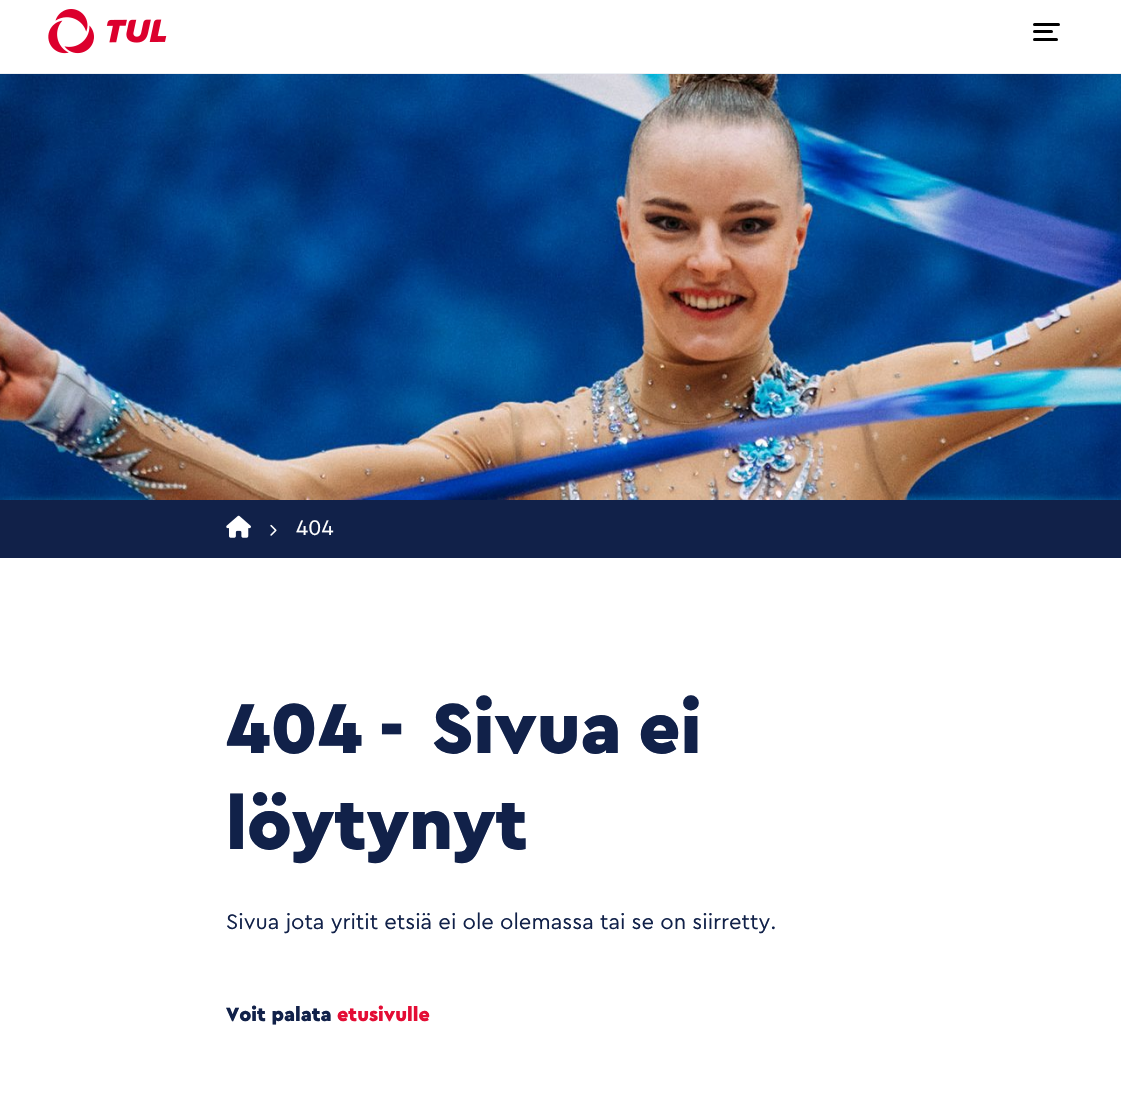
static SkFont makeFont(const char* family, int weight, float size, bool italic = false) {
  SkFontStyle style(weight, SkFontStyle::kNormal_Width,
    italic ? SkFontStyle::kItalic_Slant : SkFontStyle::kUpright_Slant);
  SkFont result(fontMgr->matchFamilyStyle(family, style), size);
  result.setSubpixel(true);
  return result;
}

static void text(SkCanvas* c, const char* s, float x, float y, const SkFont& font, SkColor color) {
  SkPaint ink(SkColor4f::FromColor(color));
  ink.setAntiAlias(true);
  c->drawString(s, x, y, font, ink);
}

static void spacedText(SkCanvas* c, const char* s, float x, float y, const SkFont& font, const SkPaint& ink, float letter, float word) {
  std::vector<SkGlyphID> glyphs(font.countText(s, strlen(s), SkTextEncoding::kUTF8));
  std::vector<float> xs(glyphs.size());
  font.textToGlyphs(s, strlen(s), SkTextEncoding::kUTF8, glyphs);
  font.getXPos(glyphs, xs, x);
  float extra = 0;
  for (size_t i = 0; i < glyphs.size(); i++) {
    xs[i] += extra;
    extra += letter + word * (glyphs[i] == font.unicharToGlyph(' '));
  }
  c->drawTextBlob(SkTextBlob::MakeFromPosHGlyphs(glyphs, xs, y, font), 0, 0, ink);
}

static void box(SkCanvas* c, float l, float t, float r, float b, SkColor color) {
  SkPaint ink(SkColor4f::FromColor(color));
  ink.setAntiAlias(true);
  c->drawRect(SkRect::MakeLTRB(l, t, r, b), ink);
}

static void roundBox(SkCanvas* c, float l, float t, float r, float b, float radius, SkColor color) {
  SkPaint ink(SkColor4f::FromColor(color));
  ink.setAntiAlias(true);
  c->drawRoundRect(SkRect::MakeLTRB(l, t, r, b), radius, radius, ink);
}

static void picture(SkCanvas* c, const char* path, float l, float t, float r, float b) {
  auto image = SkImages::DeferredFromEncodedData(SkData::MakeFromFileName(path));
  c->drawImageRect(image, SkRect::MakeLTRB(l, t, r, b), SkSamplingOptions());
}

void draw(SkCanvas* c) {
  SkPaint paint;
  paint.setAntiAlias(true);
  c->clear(0xffffffff);
  picture(c, "img_01.png", 0, 74, 1121, 500);
  box(c, 0, 73, 1121, 74, 0xffedf0f4);
  picture(c, "img_02.png", 48, 9, 167, 54);
  roundBox(c, 1033, 23, 1060, 26, 1.5f, 0xff000000);
  roundBox(c, 1033, 30, 1053, 33, 1.5f, 0xff000000);
  roundBox(c, 1033, 38, 1058, 41, 1.5f, 0xff000000);
  box(c, 0, 500, 1121, 558, 0xff112149);
  picture(c, "img_03.png", 226, 515, 251, 538);
  picture(c, "img_04.png", 270, 524, 277, 536);
  SkFont face1 = makeFont("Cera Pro", 400, 22);
  text(c, "404", 296, 535, face1, 0xffffffff);
  SkFont face2 = makeFont("Cera Pro", 900, 74);
  paint.setColor(0xff112149);
  spacedText(c, "404 -", 226, 753, face2, paint, 0, -4);
  spacedText(c, "Sivua ei", 432, 753, face2, paint, 0, -4);
  text(c, "löytynyt", 226, 849, face2, 0xff112149);
  text(c, "Sivua jota yritit etsiä ei ole olemassa tai se on siirretty.", 226, 929, face1, 0xff112149);
  SkFont face3 = makeFont("Cera Pro", 900, 20);
  text(c, "Voit palata", 226, 1021, face3, 0xff112149);
  text(c, "etusivulle", 337, 1021, face3, 0xffe40d35);
}
